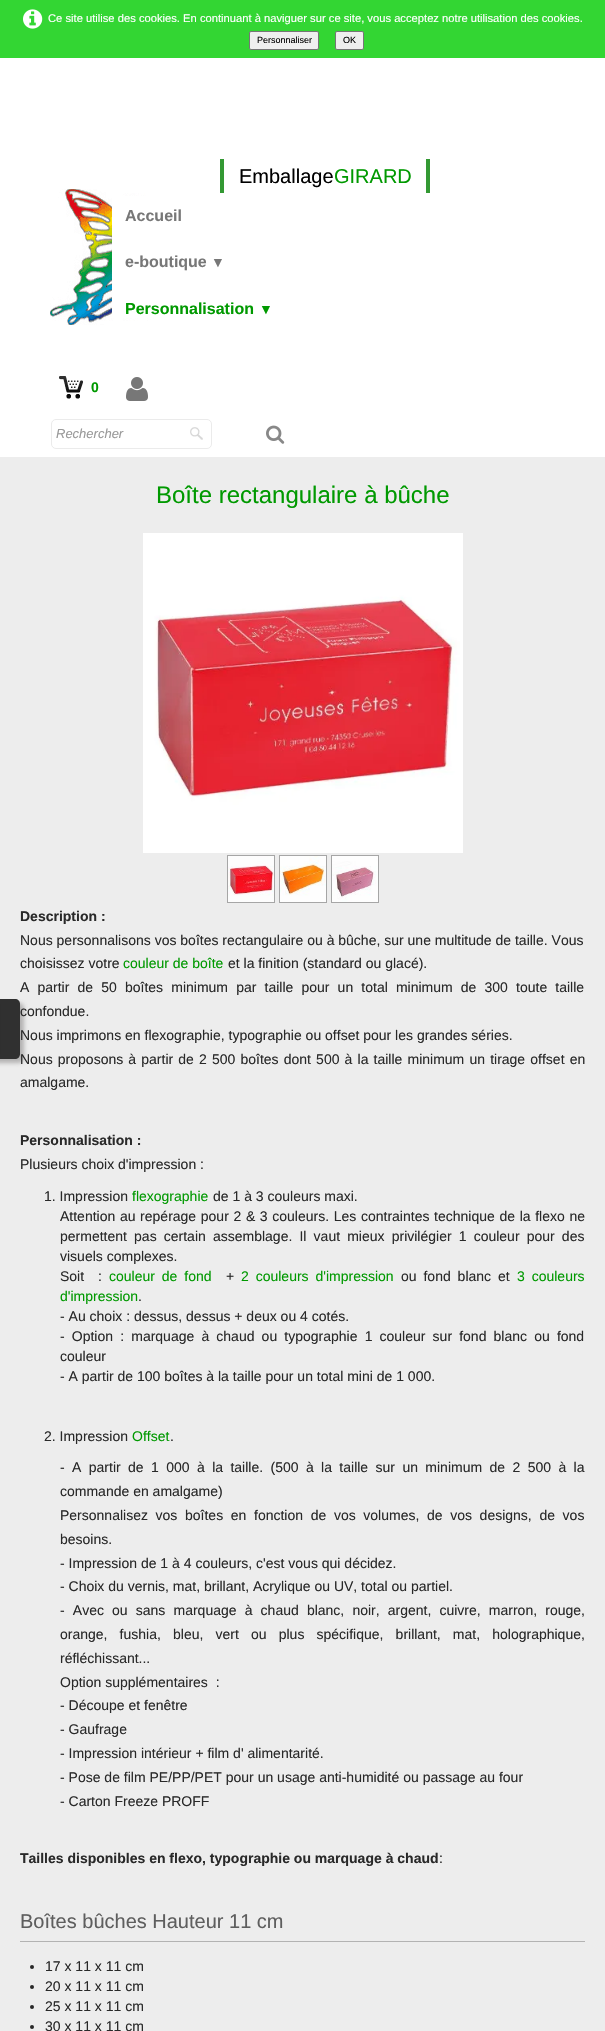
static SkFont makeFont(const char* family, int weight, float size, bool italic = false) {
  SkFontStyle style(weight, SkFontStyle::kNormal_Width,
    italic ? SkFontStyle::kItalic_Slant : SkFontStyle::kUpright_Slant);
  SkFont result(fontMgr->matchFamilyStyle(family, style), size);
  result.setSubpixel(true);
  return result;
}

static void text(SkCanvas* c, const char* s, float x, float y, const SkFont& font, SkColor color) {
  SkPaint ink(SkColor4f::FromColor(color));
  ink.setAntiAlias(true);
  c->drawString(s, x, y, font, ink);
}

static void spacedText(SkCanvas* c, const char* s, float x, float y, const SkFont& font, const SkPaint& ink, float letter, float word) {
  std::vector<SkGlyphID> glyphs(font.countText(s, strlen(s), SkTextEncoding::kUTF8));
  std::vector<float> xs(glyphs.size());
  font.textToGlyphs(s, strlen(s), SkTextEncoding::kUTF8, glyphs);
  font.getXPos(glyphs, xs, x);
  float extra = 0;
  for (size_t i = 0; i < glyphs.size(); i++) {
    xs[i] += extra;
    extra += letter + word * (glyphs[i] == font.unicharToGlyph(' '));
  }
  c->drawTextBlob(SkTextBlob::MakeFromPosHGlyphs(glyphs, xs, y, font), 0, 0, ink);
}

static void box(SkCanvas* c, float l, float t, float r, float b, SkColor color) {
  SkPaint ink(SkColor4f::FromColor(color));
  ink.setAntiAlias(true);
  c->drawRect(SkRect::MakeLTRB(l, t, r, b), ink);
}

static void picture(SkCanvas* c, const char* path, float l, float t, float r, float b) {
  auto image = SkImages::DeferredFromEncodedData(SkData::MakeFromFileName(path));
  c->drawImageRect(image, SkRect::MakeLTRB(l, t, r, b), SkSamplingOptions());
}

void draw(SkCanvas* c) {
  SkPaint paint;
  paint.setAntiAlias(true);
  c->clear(0xffffffff);
  box(c, 0, 457, 605, 2031, 0xffededed);
  c->save();
  c->clipPath(SkPathBuilder(SkPathFillType::kEvenOdd).moveTo(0, 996).lineTo(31, 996).lineTo(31, 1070).lineTo(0, 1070).close().moveTo(-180, 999).lineTo(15, 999).cubicTo(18, 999, 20, 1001, 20, 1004).lineTo(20, 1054).cubicTo(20, 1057, 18, 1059, 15, 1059).lineTo(-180, 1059).close().detach(), true);
  paint.setColor(0x82797777);
  paint.setMaskFilter(SkMaskFilter::MakeBlur(kNormal_SkBlurStyle, 2));
  c->drawRoundRect(SkRect::MakeLTRB(-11, 1003, 24, 1063), 5, 5, paint);
  paint.setMaskFilter(nullptr);
  c->restore();
  paint.setColor(0xcc000000);
  c->drawPath(SkPathBuilder().moveTo(-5, 999).lineTo(15, 999).cubicTo(18, 999, 20, 1001, 20, 1004).lineTo(20, 1054).cubicTo(20, 1057, 18, 1059, 15, 1059).lineTo(-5, 1059).close().detach(), paint);
  box(c, 0, 0, 605, 58, 0xff33d633);
  picture(c, "img_01.png", 23, 9, 43, 29);
  SkFont face1 = makeFont("Liberation Sans", 400, 11.2f);
  text(c, "Ce site utilise des cookies. En continuant à naviguer sur ce site, vous acceptez notre utilisation des cookies.", 48, 22, face1, 0xffffffff);
  paint.setColor(0xffefefef);
  c->drawRoundRect(SkRect::MakeLTRB(249.5f, 31.5f, 318.5f, 49.5f), 1.5f, 1.5f, paint);
  paint.setStyle(SkPaint::kStroke_Style);
  paint.setStrokeWidth(1);
  paint.setColor(0xff767676);
  c->drawRoundRect(SkRect::MakeLTRB(249.5f, 31.5f, 318.5f, 49.5f), 1.5f, 1.5f, paint);
  SkFont face2 = makeFont("Liberation Sans", 400, 9);
  text(c, "Personnaliser", 257, 43, face2, 0xff000000);
  paint.setStyle(SkPaint::kFill_Style);
  paint.setColor(0xffefefef);
  c->drawRoundRect(SkRect::MakeLTRB(335.5f, 31.5f, 363.5f, 49.5f), 1.5f, 1.5f, paint);
  paint.setStyle(SkPaint::kStroke_Style);
  paint.setColor(0xff767676);
  c->drawRoundRect(SkRect::MakeLTRB(335.5f, 31.5f, 363.5f, 49.5f), 1.5f, 1.5f, paint);
  text(c, "OK", 343, 43, face2, 0xff000000);
  picture(c, "img_02.png", 50, 189, 194, 325);
  box(c, 426, 159, 430, 193, 0xff339933);
  box(c, 220, 159, 224, 193, 0xff339933);
  SkFont face3 = makeFont("Liberation Sans", 400, 20);
  text(c, "Emballage", 239, 183, face3, 0xff000000);
  text(c, "GIRARD", 334, 183, face3, 0xff009900);
  box(c, 112, 196, 194, 318, 0xffffffff);
  SkFont face4 = makeFont("Liberation Sans", 700, 16);
  text(c, "Accueil", 125, 221, face4, 0xff777777);
  text(c, "e-boutique", 125, 267, face4, 0xff777777);
  SkFont face5 = makeFont("Liberation Sans", 700, 14);
  text(c, "▼", 211, 267, face5, 0xff777777);
  text(c, "Personnalisation", 125, 314, face4, 0xff009900);
  text(c, "▼", 259, 314, face5, 0xff009900);
  picture(c, "img_03.png", 59, 376, 83, 399);
  text(c, "0", 91, 392, face5, 0xff009900);
  picture(c, "img_04.png", 126, 377, 148, 401);
  picture(c, "img_05.png", 190, 427, 203, 440);
  paint.setColor(0xffebebeb);
  c->drawRoundRect(SkRect::MakeLTRB(51.5f, 419.5f, 211.5f, 448.5f), 4.5f, 4.5f, paint);
  SkFont face6 = makeFont("Liberation Sans", 400, 13, true);
  text(c, "Rechercher", 56, 438, face6, 0xff999999);
  picture(c, "img_06.png", 266, 425, 285, 444);
  SkFont face7 = makeFont("Liberation Sans", 400, 24);
  text(c, "Boîte rectangulaire à bûche", 156, 503, face7, 0xff009900);
  picture(c, "img_07.png", 143, 533, 463, 853);
  paint.setColor(0xffa6a6a6);
  c->drawRect(SkRect::MakeLTRB(227.5f, 855.5f, 274.5f, 902.5f), paint);
  c->drawRect(SkRect::MakeLTRB(279.5f, 855.5f, 326.5f, 902.5f), paint);
  c->drawRect(SkRect::MakeLTRB(331.5f, 855.5f, 378.5f, 902.5f), paint);
  picture(c, "img_08.png", 228, 856, 274, 902);
  picture(c, "img_09.png", 280, 856, 326, 902);
  picture(c, "img_10.png", 332, 856, 378, 902);
  text(c, "Description :", 20, 921, face5, 0xff292929);
  SkFont face8 = makeFont("Liberation Sans", 400, 14);
  text(c, "Nous personnalisons vos boîtes rectangulaire ou à bûche, sur une multitude de taille. Vous", 20, 945, face8, 0xff292929);
  text(c, "choisissez votre", 20, 968, face8, 0xff292929);
  text(c, "couleur de boîte", 123, 968, face8, 0xff009900);
  text(c, "et la finition (standard ou glacé).", 228, 968, face8, 0xff292929);
  paint.setStyle(SkPaint::kFill_Style);
  paint.setColor(0xff292929);
  spacedText(c, "A partir de 50 boîtes minimum par taille pour un total minimum de 300 toute taille", 20, 992, face8, paint, 0, 4.25f);
  text(c, "confondue.", 20, 1016, face8, 0xff292929);
  text(c, "Nous imprimons en flexographie, typographie ou offset pour les grandes séries.", 20, 1040, face8, 0xff292929);
  spacedText(c, "Nous proposons à partir de 2 500 boîtes dont 500 à la taille minimum un tirage offset en", 20, 1064, face8, paint, 0, 1.25f);
  text(c, "amalgame.", 20, 1087, face8, 0xff292929);
  text(c, "Personnalisation :", 20, 1145, face5, 0xff292929);
  text(c, "Plusieurs choix d'impression :", 20, 1169, face8, 0xff292929);
  text(c, "1. Impression", 44, 1201, face8, 0xff292929);
  text(c, "flexographie", 132, 1201, face8, 0xff009900);
  text(c, "de 1 à 3 couleurs maxi.", 213, 1201, face8, 0xff292929);
  spacedText(c, "Attention au repérage pour 2 & 3 couleurs. Les contraintes technique de la flexo ne", 60, 1221, face8, paint, 0, 0.75f);
  spacedText(c, "permettent pas certain assemblage. Il vaut mieux privilégier 1 couleur pour des", 60, 1241, face8, paint, 0, 3.25f);
  text(c, "visuels complexes.", 60, 1261, face8, 0xff292929);
  spacedText(c, "Soit  :", 60, 1281, face8, paint, 0, 3);
  paint.setColor(0xff009900);
  spacedText(c, "couleur de fond", 109, 1281, face8, paint, 0, 3);
  text(c, "+", 226, 1281, face8, 0xff292929);
  spacedText(c, "2 couleurs d'impression", 241, 1281, face8, paint, 0, 3);
  paint.setColor(0xff292929);
  spacedText(c, "ou fond blanc et", 401, 1281, face8, paint, 0, 3);
  paint.setColor(0xff009900);
  spacedText(c, "3 couleurs", 517, 1281, face8, paint, 0, 3);
  text(c, "d'impression", 60, 1301, face8, 0xff009900);
  text(c, ".", 138, 1301, face8, 0xff292929);
  text(c, "- Au choix : dessus, dessus + deux ou 4 cotés.", 60, 1321, face8, 0xff292929);
  paint.setColor(0xff292929);
  spacedText(c, "- Option : marquage à chaud ou typographie 1 couleur sur fond blanc ou fond", 60, 1341, face8, paint, 0, 3.25f);
  text(c, "couleur", 60, 1361, face8, 0xff292929);
  text(c, "- A partir de 100 boîtes à la taille pour un total mini de 1 000.", 60, 1381, face8, 0xff292929);
  text(c, "2. Impression", 44, 1441, face8, 0xff292929);
  text(c, "Offset", 132, 1441, face8, 0xff009900);
  text(c, ".", 170, 1441, face8, 0xff292929);
  spacedText(c, "- A partir de 1 000 à la taille. (500 à la taille sur un minimum de 2 500 à la", 60, 1472, face8, paint, 0, 3.5f);
  text(c, "commande en amalgame)", 60, 1496, face8, 0xff292929);
  spacedText(c, "Personnalisez vos boîtes en fonction de vos volumes, de vos designs, de vos", 60, 1520, face8, paint, 0, 3.75f);
  text(c, "besoins.", 60, 1544, face8, 0xff292929);
  text(c, "- Impression de 1 à 4 couleurs, c'est vous qui décidez.", 60, 1568, face8, 0xff292929);
  text(c, "- Choix du vernis, mat, brillant, Acrylique ou UV, total ou partiel.", 60, 1591, face8, 0xff292929);
  spacedText(c, "- Avec ou sans marquage à chaud blanc, noir, argent, cuivre, marron, rouge,", 60, 1615, face8, paint, 0, 4.25f);
  spacedText(c, "orange, fushia, bleu, vert ou plus spécifique, brillant, mat, holographique,", 60, 1639, face8, paint, 0, 8.25f);
  text(c, "réfléchissant...", 60, 1663, face8, 0xff292929);
  text(c, "Option supplémentaires  :", 60, 1687, face8, 0xff292929);
  text(c, "- Découpe et fenêtre", 60, 1710, face8, 0xff292929);
  text(c, "- Gaufrage", 60, 1734, face8, 0xff292929);
  text(c, "- Impression intérieur + film d' alimentarité.", 60, 1758, face8, 0xff292929);
  text(c, "- Pose de film PE/PP/PET pour un usage anti-humidité ou passage au four", 60, 1782, face8, 0xff292929);
  text(c, "- Carton Freeze PROFF", 60, 1806, face8, 0xff292929);
  text(c, "Tailles disponibles en flexo, typographie ou marquage à chaud", 20, 1863, face5, 0xff292929);
  text(c, ":", 439, 1863, face8, 0xff292929);
  box(c, 20, 1941, 585, 1942, 0xffb3b3b3);
  text(c, "Boîtes bûches Hauteur 11 cm", 20, 1928, face3, 0xff5e5e5e);
  c->drawCircle(32, 1967, 2, paint);
  text(c, "17 x 11 x 11 cm", 45, 1971, face8, 0xff292929);
  c->drawCircle(32, 1987, 2, paint);
  text(c, "20 x 11 x 11 cm", 45, 1991, face8, 0xff292929);
  c->drawCircle(32, 2007, 2, paint);
  text(c, "25 x 11 x 11 cm", 45, 2011, face8, 0xff292929);
  c->drawCircle(32, 2027, 2, paint);
  text(c, "30 x 11 x 11 cm", 45, 2031, face8, 0xff292929);
}
